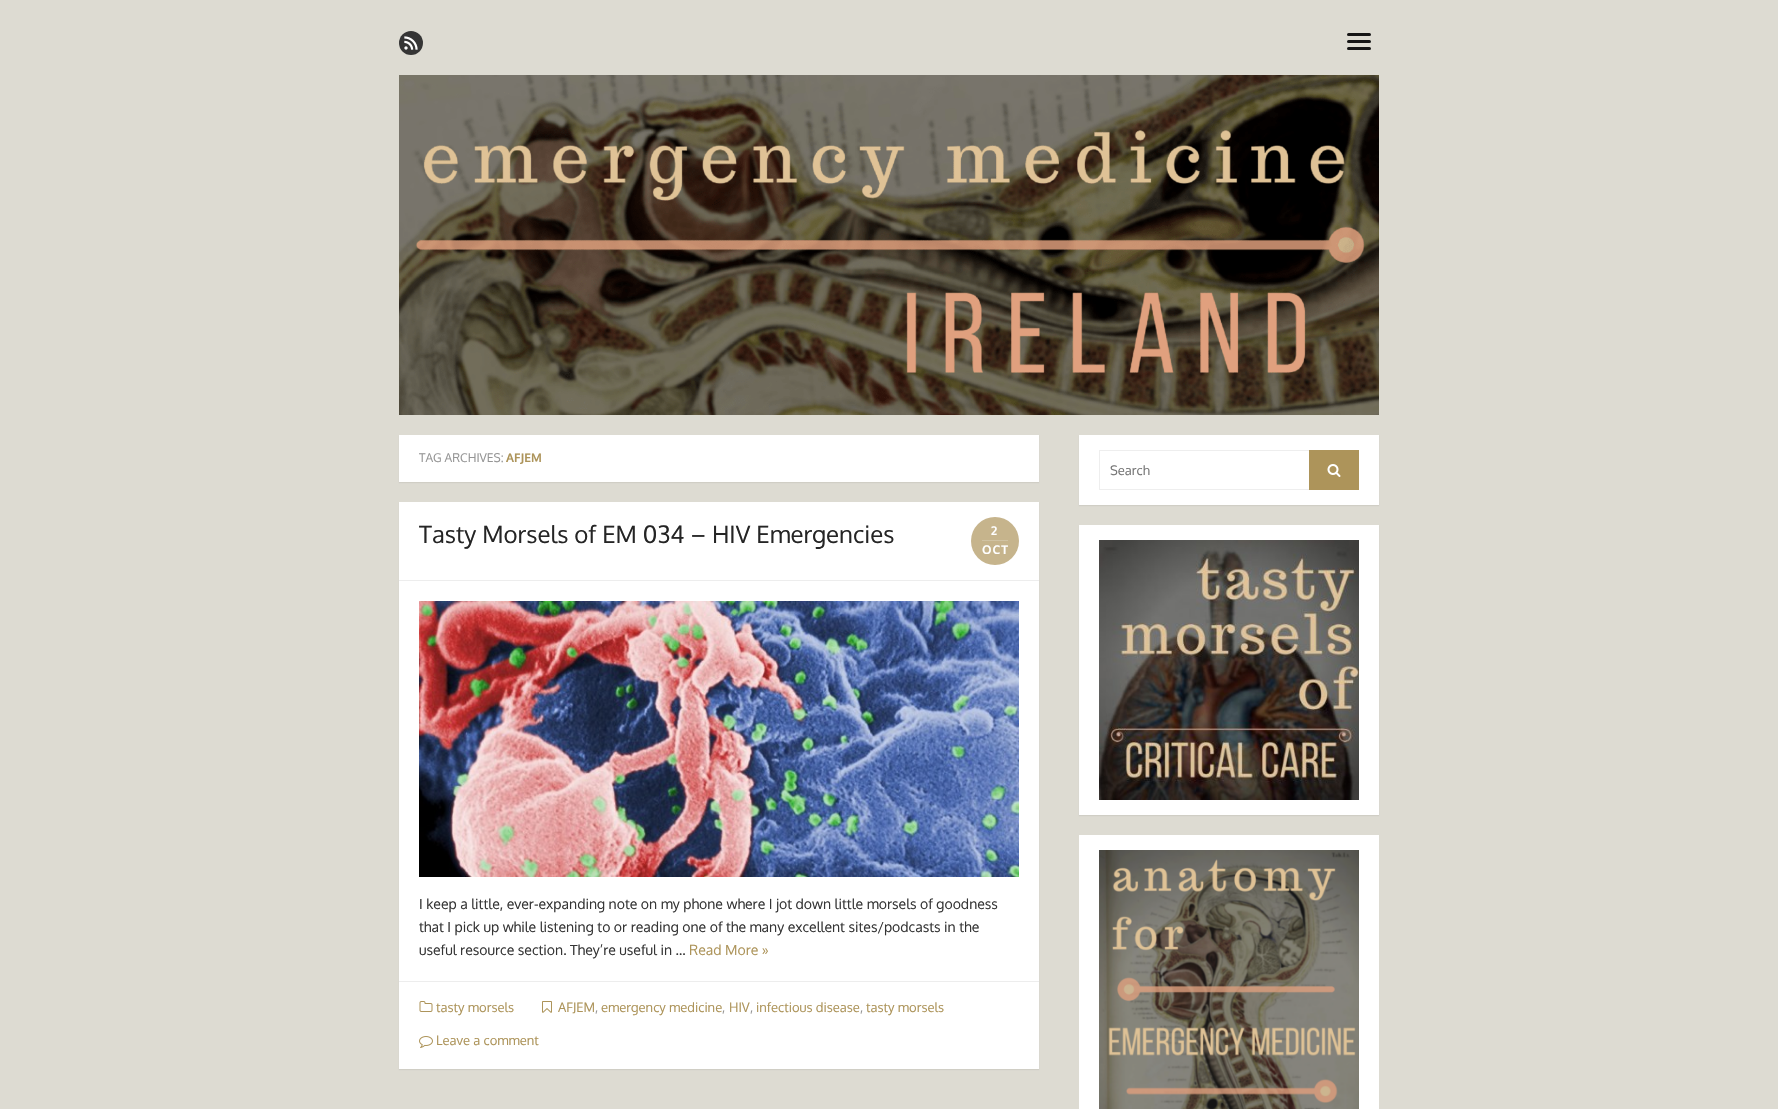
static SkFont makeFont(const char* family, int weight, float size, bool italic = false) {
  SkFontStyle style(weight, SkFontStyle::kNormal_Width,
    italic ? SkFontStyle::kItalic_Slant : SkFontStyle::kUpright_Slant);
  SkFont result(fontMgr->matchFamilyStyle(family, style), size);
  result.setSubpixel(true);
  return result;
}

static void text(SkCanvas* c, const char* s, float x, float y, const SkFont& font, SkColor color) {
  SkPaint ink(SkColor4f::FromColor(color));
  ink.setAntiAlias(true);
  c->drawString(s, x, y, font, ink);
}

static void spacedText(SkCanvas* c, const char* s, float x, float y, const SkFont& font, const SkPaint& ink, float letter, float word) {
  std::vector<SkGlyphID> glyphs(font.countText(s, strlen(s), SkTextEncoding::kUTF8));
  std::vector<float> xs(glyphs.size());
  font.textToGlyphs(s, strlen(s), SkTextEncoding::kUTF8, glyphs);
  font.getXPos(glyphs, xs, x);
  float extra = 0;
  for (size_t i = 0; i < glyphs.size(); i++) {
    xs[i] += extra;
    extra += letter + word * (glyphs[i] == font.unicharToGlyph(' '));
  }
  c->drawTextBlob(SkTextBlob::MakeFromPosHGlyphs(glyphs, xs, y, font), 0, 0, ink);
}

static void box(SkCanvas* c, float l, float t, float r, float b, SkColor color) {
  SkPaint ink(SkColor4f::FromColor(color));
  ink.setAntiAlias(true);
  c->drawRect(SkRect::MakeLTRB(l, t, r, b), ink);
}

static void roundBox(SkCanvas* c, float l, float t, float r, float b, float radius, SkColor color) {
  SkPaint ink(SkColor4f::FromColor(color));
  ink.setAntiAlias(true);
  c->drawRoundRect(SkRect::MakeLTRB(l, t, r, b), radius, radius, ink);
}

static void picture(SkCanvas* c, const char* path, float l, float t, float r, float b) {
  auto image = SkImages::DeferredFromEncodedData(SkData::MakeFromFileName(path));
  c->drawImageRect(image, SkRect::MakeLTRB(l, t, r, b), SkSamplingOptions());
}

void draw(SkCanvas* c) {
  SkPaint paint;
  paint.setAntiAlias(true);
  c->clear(0xffdddbd2);
  paint.setColor(0xff353535);
  c->drawCircle(411, 43, 12, paint);
  picture(c, "img_01.png", 404, 36, 418, 50);
  roundBox(c, 1347, 40, 1371, 43, 1.5f, 0xff151515);
  roundBox(c, 1347, 33, 1371, 36, 1.5f, 0xff151515);
  roundBox(c, 1347, 47, 1371, 50, 1.5f, 0xff151515);
  picture(c, "img_02.png", 399, 75, 1379, 415);
  paint.setColor(0x0f000000);
  paint.setMaskFilter(SkMaskFilter::MakeBlur(kNormal_SkBlurStyle, 0.5f));
  c->drawRect(SkRect::MakeLTRB(399, 436, 1039, 483), paint);
  paint.setMaskFilter(nullptr);
  box(c, 399, 435, 1039, 482, 0xffffffff);
  SkFont face1 = makeFont("Oxygen", 400, 12);
  text(c, "TAG ARCHIVES:", 419, 462, face1, 0xff959595);
  SkFont face2 = makeFont("Oxygen", 700, 12);
  text(c, "AFJEM", 506, 462, face2, 0xffad945a);
  paint.setMaskFilter(SkMaskFilter::MakeBlur(kNormal_SkBlurStyle, 0.5f));
  c->drawRect(SkRect::MakeLTRB(399, 503, 1039, 1070), paint);
  paint.setMaskFilter(nullptr);
  box(c, 399, 502, 1039, 1069, 0xffffffff);
  box(c, 399, 580, 1039, 581, 0xffededed);
  SkFont face3 = makeFont("Oxygen", 400, 24);
  text(c, "Tasty Morsels of EM 034 – HIV Emergencies", 419, 543, face3, 0xff252525);
  paint.setColor(0xffc6b48c);
  c->drawCircle(995, 541, 24, paint);
  paint.setColor(0xffffffff);
  spacedText(c, "2", 991, 535, face2, paint, 1, 0);
  box(c, 982, 540, 1008, 541, 0xffd1c3a3);
  spacedText(c, "OCT", 982, 554, face2, paint, 1, 0);
  picture(c, "img_03.png", 419, 601, 1019, 877);
  SkFont face4 = makeFont("Oxygen", 400, 14);
  text(c, "I keep a little, ever-expanding note on my phone where I jot down little morsels of goodness", 419, 909, face4, 0xff353535);
  text(c, "that I pick up while listening to or reading one of the many excellent sites/podcasts in the", 419, 932, face4, 0xff353535);
  text(c, "useful resource section. They’re useful in …", 419, 955, face4, 0xff353535);
  text(c, "Read More »", 689, 955, face4, 0xffad945a);
  box(c, 399, 981, 1039, 982, 0xffededed);
  picture(c, "img_04.png", 419, 1001, 433, 1012);
  SkFont face5 = makeFont("Oxygen", 400, 13);
  text(c, "tasty morsels", 436, 1012, face5, 0xffad945a);
  picture(c, "img_05.png", 542, 1001, 552, 1013);
  text(c, "AFJEM", 558, 1012, face5, 0xffad945a);
  text(c, ",", 595, 1012, face5, 0xff959595);
  text(c, "emergency medicine", 601, 1012, face5, 0xffad945a);
  text(c, ",", 722, 1012, face5, 0xff959595);
  text(c, "HIV", 729, 1012, face5, 0xffad945a);
  text(c, ",", 750, 1012, face5, 0xff959595);
  text(c, "infectious disease", 756, 1012, face5, 0xffad945a);
  text(c, ",", 860, 1012, face5, 0xff959595);
  text(c, "tasty morsels", 866, 1012, face5, 0xffad945a);
  picture(c, "img_06.png", 419, 1036, 433, 1048);
  text(c, "Leave a comment", 436, 1045, face5, 0xffad945a);
  paint.setColor(0x0f000000);
  paint.setMaskFilter(SkMaskFilter::MakeBlur(kNormal_SkBlurStyle, 0.5f));
  c->drawRect(SkRect::MakeLTRB(1079, 436, 1379, 506), paint);
  paint.setMaskFilter(nullptr);
  box(c, 1079, 435, 1379, 505, 0xffffffff);
  paint.setStyle(SkPaint::kStroke_Style);
  paint.setStrokeWidth(1);
  paint.setColor(0xffeeeeee);
  c->drawRect(SkRect::MakeLTRB(1099.5f, 450.5f, 1358.5f, 489.5f), paint);
  text(c, "Search", 1110, 475, face5, 0xff757575);
  box(c, 1309, 450, 1359, 490, 0xffad945a);
  picture(c, "img_07.png", 1327, 464, 1341, 477);
  paint.setStyle(SkPaint::kFill_Style);
  paint.setColor(0x0f000000);
  paint.setMaskFilter(SkMaskFilter::MakeBlur(kNormal_SkBlurStyle, 0.5f));
  c->drawRect(SkRect::MakeLTRB(1079, 526, 1379, 816), paint);
  paint.setMaskFilter(nullptr);
  box(c, 1079, 525, 1379, 815, 0xffffffff);
  picture(c, "img_08.png", 1099, 540, 1359, 800);
  box(c, 1079, 835, 1379, 1109, 0xffffffff);
  picture(c, "img_09.png", 1099, 850, 1359, 1109);
}
